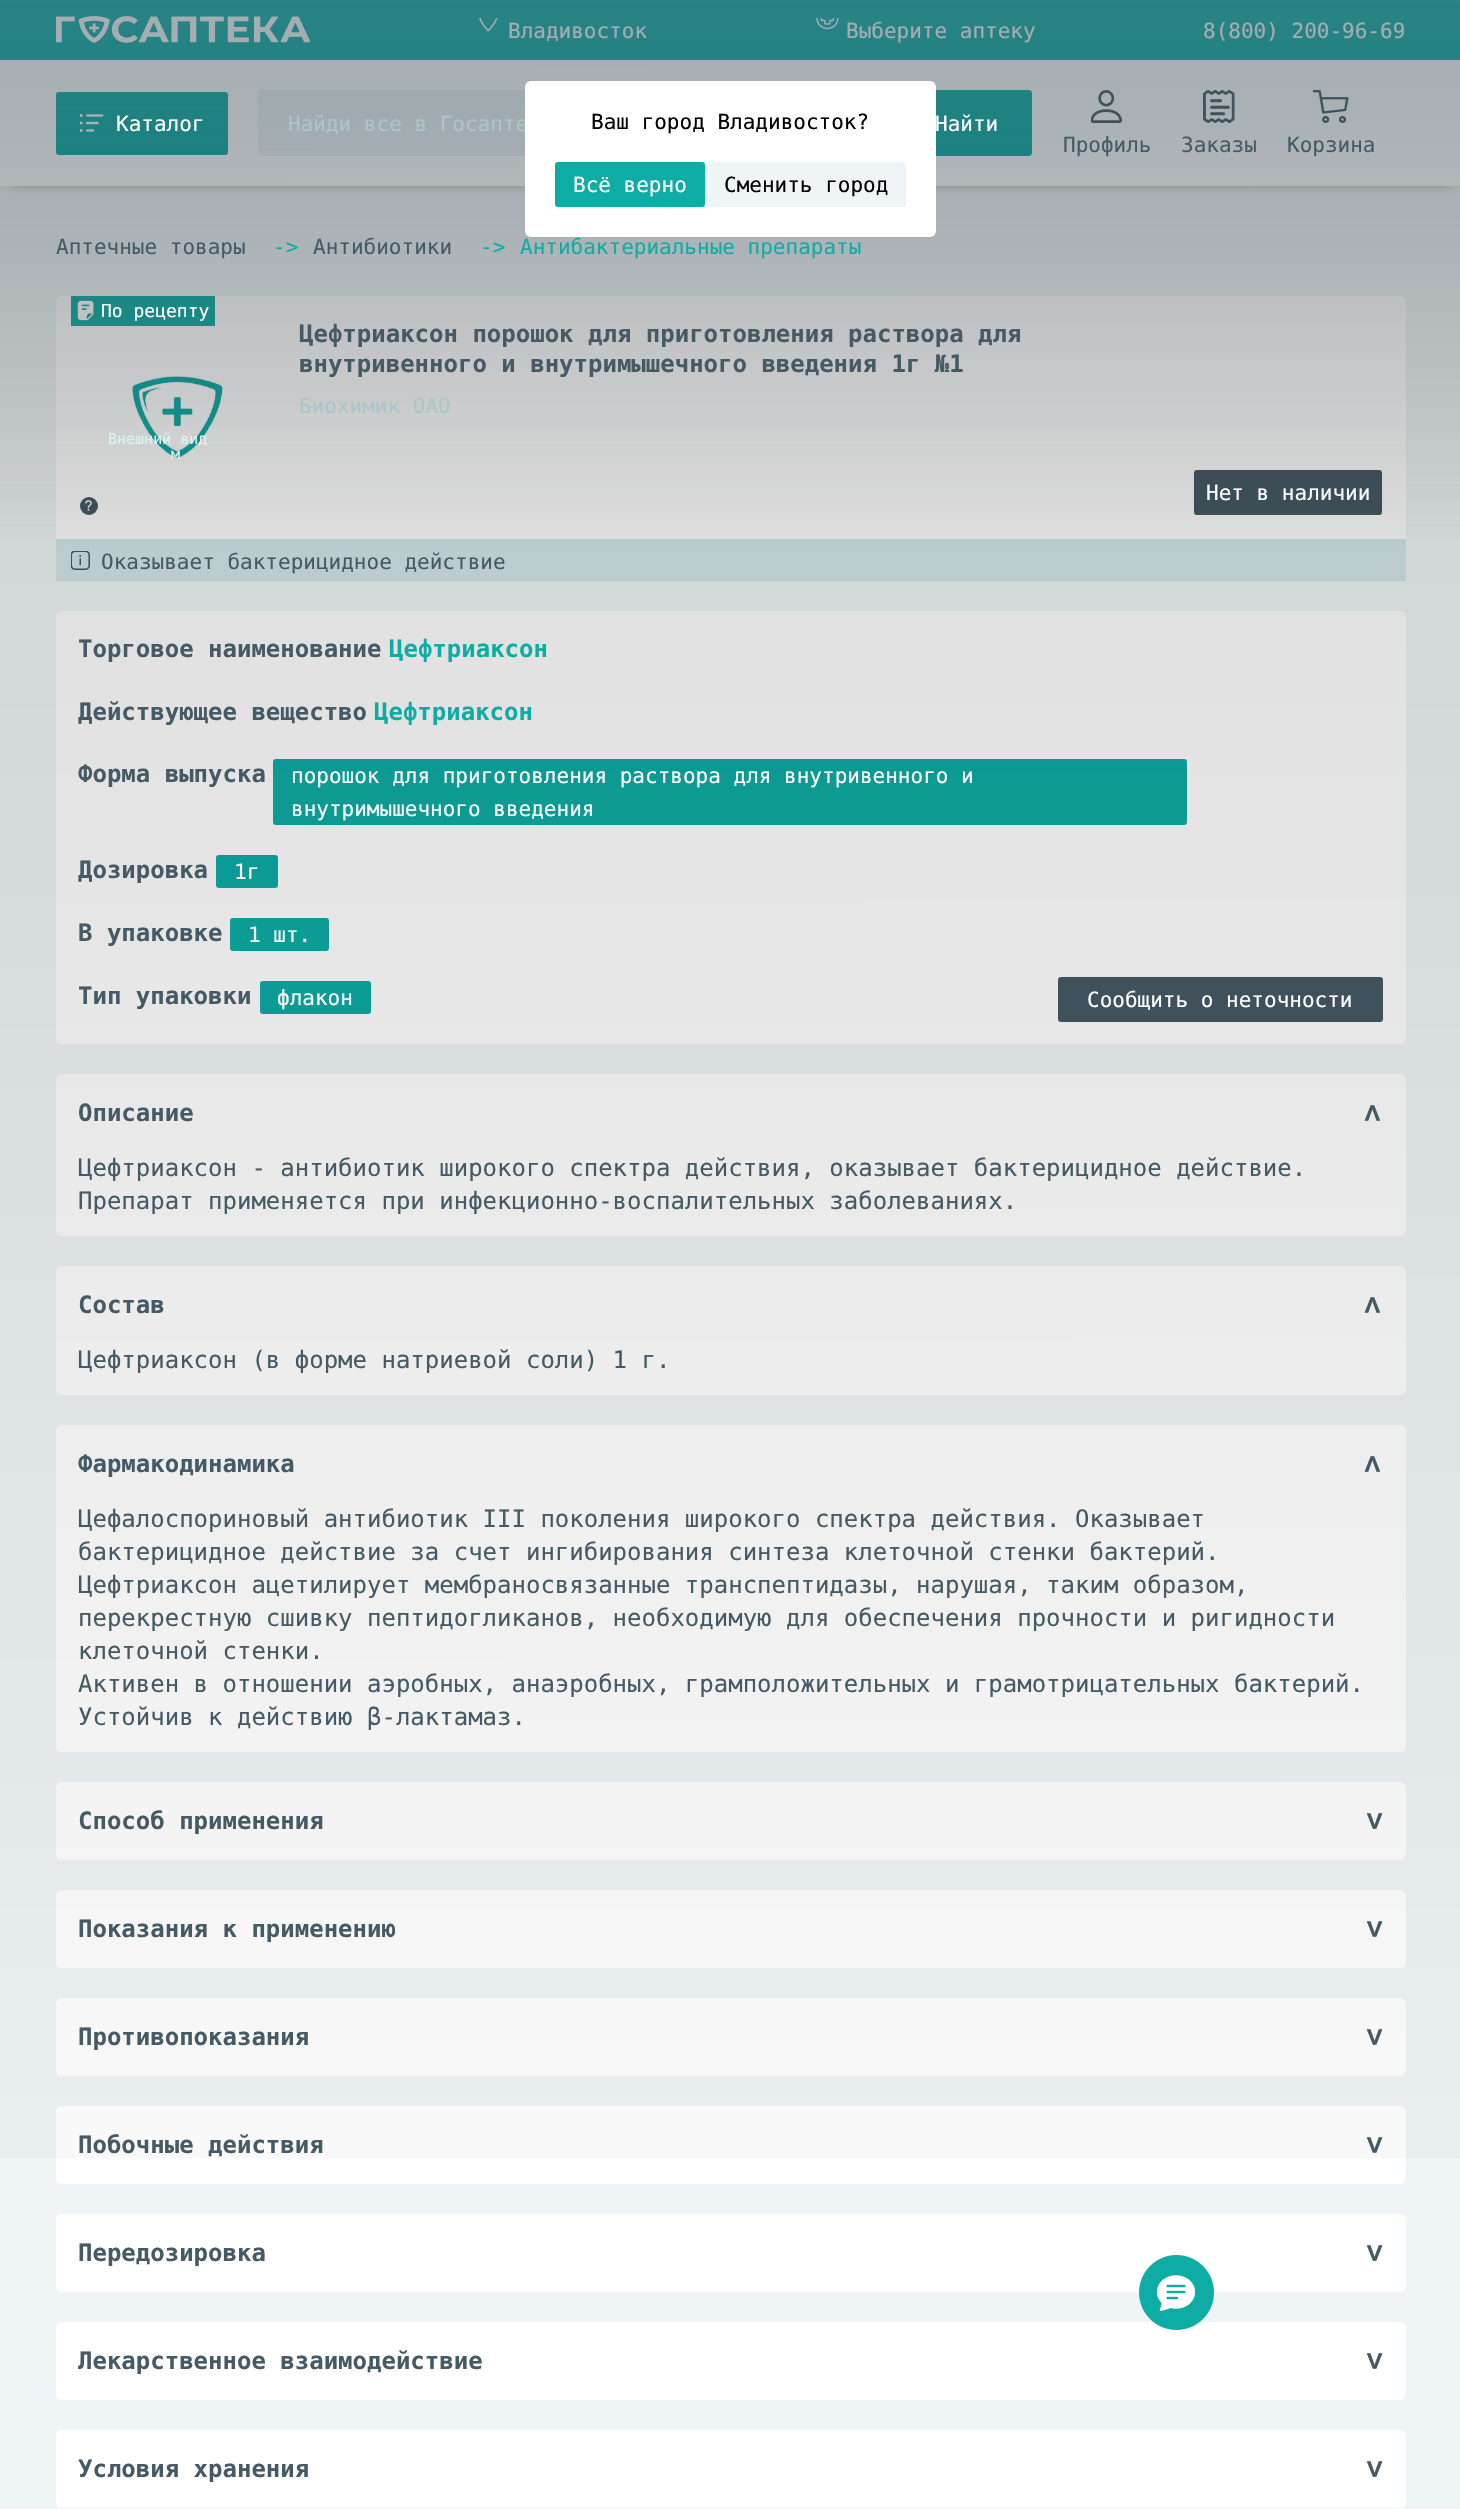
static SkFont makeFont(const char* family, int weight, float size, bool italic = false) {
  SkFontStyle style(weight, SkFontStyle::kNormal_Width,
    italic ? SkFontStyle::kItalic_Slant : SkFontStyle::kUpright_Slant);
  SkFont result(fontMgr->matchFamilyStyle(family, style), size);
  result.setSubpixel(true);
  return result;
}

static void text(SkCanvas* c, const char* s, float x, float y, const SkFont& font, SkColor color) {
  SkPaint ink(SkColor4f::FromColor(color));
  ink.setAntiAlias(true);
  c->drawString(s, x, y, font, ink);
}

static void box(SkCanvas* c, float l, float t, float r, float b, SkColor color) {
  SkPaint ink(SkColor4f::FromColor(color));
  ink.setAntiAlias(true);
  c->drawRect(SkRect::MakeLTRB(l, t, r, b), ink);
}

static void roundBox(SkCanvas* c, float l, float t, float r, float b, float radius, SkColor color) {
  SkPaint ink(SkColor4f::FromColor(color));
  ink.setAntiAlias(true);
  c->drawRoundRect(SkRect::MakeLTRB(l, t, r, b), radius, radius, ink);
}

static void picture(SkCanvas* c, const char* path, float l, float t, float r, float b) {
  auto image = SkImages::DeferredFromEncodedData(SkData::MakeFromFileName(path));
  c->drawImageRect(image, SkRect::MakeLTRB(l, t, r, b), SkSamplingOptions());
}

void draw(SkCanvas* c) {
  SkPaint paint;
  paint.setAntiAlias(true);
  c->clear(0xffeff5f6);
  paint.setColor(0xff000000);
  paint.setMaskFilter(SkMaskFilter::MakeBlur(kNormal_SkBlurStyle, 7.5f));
  c->drawRect(SkRect::MakeLTRB(9, 9, 1452, 177), paint);
  paint.setMaskFilter(nullptr);
  box(c, 0, 0, 1460, 60, 0xff0daca5);
  picture(c, "img_01.png", 56, 16, 310, 43);
  picture(c, "img_02.png", 479, 18, 498, 32);
  SkFont face1 = makeFont("DejaVu Sans Mono", 400, 21);
  text(c, "Владивосток", 508, 38, face1, 0xffffffff);
  picture(c, "img_03.png", 816, 18, 839, 30);
  text(c, "Выберите аптеку", 846, 38, face1, 0xffffffff);
  text(c, "8(800) 200-96-69", 1203, 38, face1, 0xffffffff);
  box(c, 0, 60, 1460, 186, 0xffffffff);
  roundBox(c, 56, 92, 228, 155, 3, 0xff0daca5);
  picture(c, "img_04.png", 80, 114, 104, 132);
  paint.setColor(0xffeff5f6);
  c->drawPath(SkPathBuilder().moveTo(261, 90).lineTo(825, 90).lineTo(825, 156).lineTo(261, 156).cubicTo(259.5f, 156, 258, 154.5f, 258, 153).lineTo(258, 93).cubicTo(258, 91.5f, 259.5f, 90, 261, 90).close().detach(), paint);
  paint.setColor(0xff0daca5);
  c->drawPath(SkPathBuilder().moveTo(900, 90).lineTo(1029, 90).cubicTo(1030.5f, 90, 1032, 91.5f, 1032, 93).lineTo(1032, 153).cubicTo(1032, 154.5f, 1030.5f, 156, 1029, 156).lineTo(900, 156).close().detach(), paint);
  picture(c, "img_05.png", 1091, 90, 1122, 123);
  picture(c, "img_06.png", 1203, 90, 1235, 123);
  picture(c, "img_07.png", 1313, 90, 1349, 123);
  roundBox(c, 56, 296, 1406, 581, 6, 0xffffffff);
  picture(c, "img_09.png", 71, 296, 101, 326);
  box(c, 101, 296, 215, 326, 0xff19aea8);
  picture(c, "img_10.png", 132, 376, 223, 458);
  paint.setColor(0xff455a64);
  c->drawCircle(89, 506, 9, paint);
  picture(c, "img_11.png", 85, 500, 92, 511);
  roundBox(c, 1194, 470, 1382, 515, 3, 0xff455a64);
  box(c, 56, 539, 1406, 581, 0xffd5e8eb);
  picture(c, "img_12.png", 71, 551, 90, 570);
  roundBox(c, 56, 611, 1406, 1044, 6, 0xffffffff);
  roundBox(c, 273, 759, 1187, 825, 3, 0xff0daca5);
  roundBox(c, 216, 855, 278, 888, 3, 0xff0daca5);
  roundBox(c, 230, 918, 329, 951, 3, 0xff0daca5);
  roundBox(c, 260, 981, 371, 1014, 3, 0xff0daca5);
  roundBox(c, 1058, 977, 1383, 1022, 3, 0xff455a64);
  roundBox(c, 56, 1074, 1406, 1236, 6, 0xffffffff);
  roundBox(c, 56, 1266, 1406, 1395, 6, 0xffffffff);
  roundBox(c, 56, 1425, 1406, 1752, 6, 0xffffffff);
  roundBox(c, 56, 1782, 1406, 1860, 6, 0xffffffff);
  roundBox(c, 56, 1890, 1406, 1968, 6, 0xffffffff);
  roundBox(c, 56, 1998, 1406, 2076, 6, 0xffffffff);
  roundBox(c, 56, 2106, 1406, 2184, 6, 0xffffffff);
  {
    const SkColor colors[] = {0x80455a64, 0x1f000000, 0x00000000};
    const float stops[] = {0, 0.22f, 1};
    const SkPoint ends[] = {{730, 0}, {731, 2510}};
    paint.setShader(SkGradientShader::MakeLinear(ends, colors, stops, 3, SkTileMode::kClamp));
    paint.setAlpha(255);
  }
  c->drawRect(SkRect::MakeLTRB(0, 0, 1460, 2158), paint);
  text(c, "Найди все в Госапте", 288, 131, face1, 0xffacc5c9);
  roundBox(c, 525, 81, 936, 237, 6, 0xffffffff);
  text(c, "Ваш город Владивосток?", 591, 129, face1, 0xff000000);
  roundBox(c, 555, 162, 705, 207, 3, 0xff0daca5);
  text(c, "Всё верно", 573, 192, face1, 0xffffffff);
  roundBox(c, 705, 162, 906, 207, 3, 0xffeff5f6);
  text(c, "Сменить город", 724, 192, face1, 0xff000000);
  text(c, "Каталог", 116, 131, face1, 0xffffffff);
  text(c, "Найти", 935, 131, face1, 0xffffffff);
  text(c, "Профиль", 1063, 152, face1, 0xff455a64);
  text(c, "Заказы", 1181, 152, face1, 0xff455a64);
  text(c, "Корзина", 1287, 152, face1, 0xff455a64);
  roundBox(c, 56, 2214, 1406, 2292, 6, 0xffffffff);
  roundBox(c, 56, 2322, 1406, 2400, 6, 0xffffffff);
  picture(c, "img_08.png", 1139, 2255, 1214, 2330);
  text(c, "Аптечные товары", 56, 254, face1, 0xff455a64);
  text(c, "->", 273, 254, face1, 0xff0daca5);
  text(c, "Антибиотики", 313, 254, face1, 0xff455a64);
  text(c, "->", 480, 254, face1, 0xff0daca5);
  text(c, "Антибактериальные препараты", 520, 254, face1, 0xff0daca5);
  SkFont face2 = makeFont("DejaVu Sans Mono", 400, 18);
  text(c, "По рецепту", 101, 317, face2, 0xffffffff);
  SkFont face3 = makeFont("DejaVu Sans Mono", 700, 24);
  text(c, "Цефтриаксон порошок для приготовления раствора для", 299, 342, face3, 0xff455a64);
  text(c, "внутривенного и внутримышечного введения 1г №1", 299, 372, face3, 0xff455a64);
  text(c, "Биохимик ОАО", 299, 413, face1, 0xffacc5c9);
  SkFont face4 = makeFont("DejaVu Sans Mono", 400, 15);
  text(c, "Внешний вид", 108, 444, face4, 0xffdef3f2);
  text(c, "м", 171, 459, face4, 0xffdef3f2);
  text(c, "Нет в наличии", 1206, 500, face1, 0xffffffff);
  text(c, "Оказывает бактерицидное действие", 101, 569, face1, 0xff455a64);
  text(c, "Торговое наименование", 78, 657, face3, 0xff455a64);
  text(c, "Цефтриаксон", 389, 657, face3, 0xff0daca5);
  text(c, "Действующее вещество", 78, 720, face3, 0xff455a64);
  text(c, "Цефтриаксон", 374, 720, face3, 0xff0daca5);
  text(c, "Форма выпуска", 78, 782, face3, 0xff455a64);
  text(c, "порошок для приготовления раствора для внутривенного и", 291, 783, face1, 0xffffffff);
  text(c, "внутримышечного введения", 291, 816, face1, 0xffffffff);
  text(c, "Дозировка", 78, 878, face3, 0xff455a64);
  text(c, "1г", 234, 879, face1, 0xffffffff);
  text(c, "В упаковке", 78, 941, face3, 0xff455a64);
  text(c, "1 шт.", 248, 942, face1, 0xffffffff);
  text(c, "Тип упаковки", 78, 1004, face3, 0xff455a64);
  text(c, "флакон", 277, 1005, face1, 0xffffffff);
  text(c, "Сообщить о неточности", 1087, 1007, face1, 0xffffffff);
  text(c, "Описание", 78, 1121, face3, 0xff455a64);
  SkFont face5 = makeFont("DejaVu Sans Mono", 700, 30);
  c->save();
  c->rotate(90, 1363, 1104);
  text(c, "<", 1363, 1104, face5, 0xff455a64);
  c->restore();
  SkFont face6 = makeFont("DejaVu Sans Mono", 400, 24);
  text(c, "Цефтриаксон - антибиотик широкого спектра действия, оказывает бактерицидное действие.", 78, 1176, face6, 0xff455a64);
  text(c, "Препарат применяется при инфекционно-воспалительных заболеваниях.", 78, 1209, face6, 0xff455a64);
  text(c, "Состав", 78, 1313, face3, 0xff455a64);
  c->save();
  c->rotate(90, 1363, 1296);
  text(c, "<", 1363, 1296, face5, 0xff455a64);
  c->restore();
  text(c, "Цефтриаксон (в форме натриевой соли) 1 г.", 78, 1368, face6, 0xff455a64);
  text(c, "Фармакодинамика", 78, 1472, face3, 0xff455a64);
  c->save();
  c->rotate(90, 1363, 1455);
  text(c, "<", 1363, 1455, face5, 0xff455a64);
  c->restore();
  text(c, "Цефалоспориновый антибиотик III поколения широкого спектра действия. Оказывает", 78, 1527, face6, 0xff455a64);
  text(c, "бактерицидное действие за счет ингибирования синтеза клеточной стенки бактерий.", 78, 1560, face6, 0xff455a64);
  text(c, "Цефтриаксон ацетилирует мембраносвязанные транспептидазы, нарушая, таким образом,", 78, 1593, face6, 0xff455a64);
  text(c, "перекрестную сшивку пептидогликанов, необходимую для обеспечения прочности и ригидности", 78, 1626, face6, 0xff455a64);
  text(c, "клеточной стенки.", 78, 1659, face6, 0xff455a64);
  text(c, "Активен в отношении аэробных, анаэробных, грамположительных и грамотрицательных бактерий.", 78, 1692, face6, 0xff455a64);
  text(c, "Устойчив к действию β-лактамаз.", 78, 1725, face6, 0xff455a64);
  text(c, "Способ применения", 78, 1829, face3, 0xff455a64);
  c->save();
  c->rotate(-90, 1384, 1830);
  text(c, "<", 1384, 1830, face5, 0xff455a64);
  c->restore();
  text(c, "Показания к применению", 78, 1937, face3, 0xff455a64);
  c->save();
  c->rotate(-90, 1384, 1938);
  text(c, "<", 1384, 1938, face5, 0xff455a64);
  c->restore();
  text(c, "Противопоказания", 78, 2045, face3, 0xff455a64);
  c->save();
  c->rotate(-90, 1384, 2046);
  text(c, "<", 1384, 2046, face5, 0xff455a64);
  c->restore();
  text(c, "Побочные действия", 78, 2153, face3, 0xff455a64);
  c->save();
  c->rotate(-90, 1384, 2154);
  text(c, "<", 1384, 2154, face5, 0xff455a64);
  c->restore();
  text(c, "Передозировка", 78, 2261, face3, 0xff455a64);
  c->save();
  c->rotate(-90, 1384, 2262);
  text(c, "<", 1384, 2262, face5, 0xff455a64);
  c->restore();
  text(c, "Лекарственное взаимодействие", 78, 2369, face3, 0xff455a64);
  c->save();
  c->rotate(-90, 1384, 2370);
  text(c, "<", 1384, 2370, face5, 0xff455a64);
  c->restore();
  roundBox(c, 56, 2430, 1406, 2508, 6, 0xffffffff);
  text(c, "Условия хранения", 78, 2477, face3, 0xff455a64);
  c->save();
  c->rotate(-90, 1384, 2478);
  text(c, "<", 1384, 2478, face5, 0xff455a64);
  c->restore();
}
